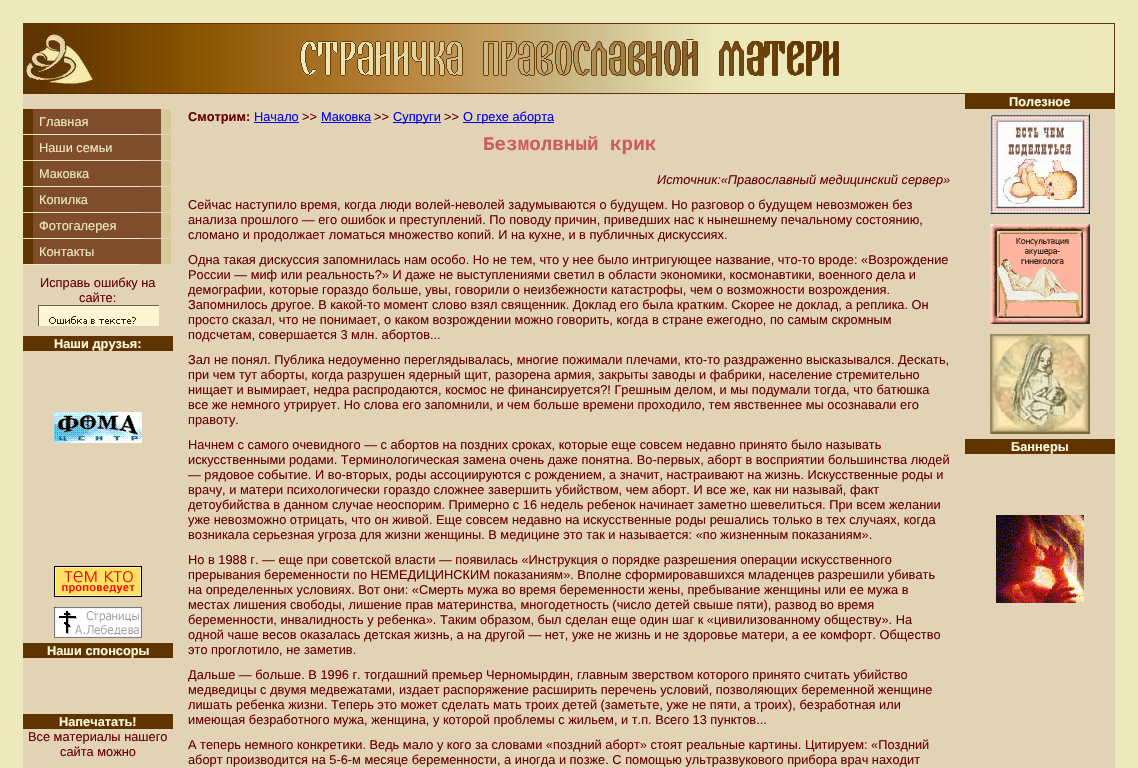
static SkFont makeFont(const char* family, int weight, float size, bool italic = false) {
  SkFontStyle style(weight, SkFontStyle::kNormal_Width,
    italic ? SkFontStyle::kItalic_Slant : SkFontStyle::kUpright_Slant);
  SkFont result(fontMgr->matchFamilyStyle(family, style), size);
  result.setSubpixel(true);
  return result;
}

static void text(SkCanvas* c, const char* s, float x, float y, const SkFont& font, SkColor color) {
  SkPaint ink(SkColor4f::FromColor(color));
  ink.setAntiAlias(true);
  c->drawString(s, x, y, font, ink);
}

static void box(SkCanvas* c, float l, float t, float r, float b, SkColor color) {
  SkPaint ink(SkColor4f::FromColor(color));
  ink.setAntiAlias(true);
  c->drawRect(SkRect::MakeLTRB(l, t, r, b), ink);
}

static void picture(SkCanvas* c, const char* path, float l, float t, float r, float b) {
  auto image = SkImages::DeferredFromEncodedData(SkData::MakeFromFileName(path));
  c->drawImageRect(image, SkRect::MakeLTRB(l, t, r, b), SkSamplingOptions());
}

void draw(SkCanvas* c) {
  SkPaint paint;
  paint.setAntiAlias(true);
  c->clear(0xffece9bc);
  picture(c, "img_01.png", 24, 24, 710, 93);
  paint.setStyle(SkPaint::kStroke_Style);
  paint.setStrokeWidth(1);
  paint.setColor(0xff5f3401);
  c->drawRect(SkRect::MakeLTRB(23.5f, 23.5f, 1114.5f, 93.5f), paint);
  picture(c, "img_02.png", 300, 39, 839, 76);
  box(c, 23, 94, 1115, 768, 0xffe2d3b7);
  box(c, 23, 134, 140, 135, 0xffece9bc);
  box(c, 33, 109, 161, 134, 0xff7f4d2c);
  box(c, 161, 109, 171, 134, 0xffd6c99c);
  box(c, 23, 109, 33, 134, 0xff5f3401);
  SkFont face1 = makeFont("Liberation Sans", 400, 12.8f);
  text(c, "Главная", 39, 126, face1, 0xffece9bc);
  box(c, 23, 160, 140, 161, 0xffece9bc);
  box(c, 33, 135, 161, 160, 0xff7f4d2c);
  box(c, 161, 135, 171, 160, 0xffd6c99c);
  box(c, 23, 135, 33, 160, 0xff5f3401);
  text(c, "Наши семьи", 39, 152, face1, 0xffece9bc);
  box(c, 23, 186, 140, 187, 0xffece9bc);
  box(c, 33, 161, 161, 186, 0xff7f4d2c);
  box(c, 161, 161, 171, 186, 0xffd6c99c);
  box(c, 23, 161, 33, 186, 0xff5f3401);
  text(c, "Маковка", 39, 178, face1, 0xffece9bc);
  box(c, 23, 212, 140, 213, 0xffece9bc);
  box(c, 33, 187, 161, 212, 0xff7f4d2c);
  box(c, 161, 187, 171, 212, 0xffd6c99c);
  box(c, 23, 187, 33, 212, 0xff5f3401);
  text(c, "Копилка", 39, 204, face1, 0xffece9bc);
  box(c, 23, 238, 140, 239, 0xffece9bc);
  box(c, 33, 213, 161, 238, 0xff7f4d2c);
  box(c, 161, 213, 171, 238, 0xffd6c99c);
  box(c, 23, 213, 33, 238, 0xff5f3401);
  text(c, "Фотогалерея", 39, 230, face1, 0xffece9bc);
  box(c, 23, 264, 140, 265, 0xffece9bc);
  box(c, 33, 239, 161, 264, 0xff7f4d2c);
  box(c, 161, 239, 171, 264, 0xffd6c99c);
  box(c, 23, 239, 33, 264, 0xff5f3401);
  text(c, "Контакты", 39, 256, face1, 0xffece9bc);
  text(c, "Исправь ошибку на", 40, 287, face1, 0xff660000);
  text(c, "сайте:", 79, 302, face1, 0xff660000);
  picture(c, "img_03.png", 38, 305, 159, 326);
  box(c, 23, 336, 173, 351, 0xff5f3401);
  SkFont face2 = makeFont("Liberation Sans", 700, 12.8f);
  text(c, "Наши друзья:", 54, 348, face2, 0xfffff8dc);
  picture(c, "img_04.png", 54, 412, 142, 443);
  picture(c, "img_05.png", 54, 566, 142, 597);
  picture(c, "img_06.png", 54, 607, 142, 638);
  box(c, 23, 643, 173, 658, 0xff5f3401);
  text(c, "Наши спонсоры", 47, 655, face2, 0xfffff8dc);
  box(c, 23, 714, 173, 729, 0xff5f3401);
  text(c, "Напечатать!", 59, 726, face2, 0xfffff8dc);
  text(c, "Все материалы нашего", 28, 741, face1, 0xff660000);
  text(c, "сайта можно", 60, 756, face1, 0xff660000);
  text(c, "Смотрим:", 188, 121, face2, 0xff660000);
  text(c, "Начало", 254, 121, face1, 0xff0000ee);
  box(c, 254, 122, 299, 123, 0xff0000ee);
  text(c, ">>", 302, 121, face1, 0xff660000);
  text(c, "Маковка", 321, 121, face1, 0xff0000ee);
  box(c, 321, 122, 371, 123, 0xff0000ee);
  text(c, ">>", 374, 121, face1, 0xff660000);
  box(c, 393, 122, 441, 123, 0xff0000ee);
  text(c, "Супруги", 393, 121, face1, 0xff0000ee);
  text(c, ">>", 444, 121, face1, 0xff660000);
  box(c, 463, 122, 554, 123, 0xff0000ee);
  text(c, "О грехе аборта", 463, 121, face1, 0xff0000ee);
  SkFont face3 = makeFont("Liberation Mono", 700, 19.25f);
  text(c, "Безмолвный крик", 483, 150, face3, 0xffcd5c5c);
  SkFont face4 = makeFont("Liberation Sans", 400, 12.8f, true);
  text(c, "Источник:«Православный медицинский сервер»", 657, 184, face4, 0xff660000);
  text(c, "Сейчас наступило время, когда люди волей-неволей задумываются о будущем. Но разговор о будущем невозможен без", 188, 209, face1, 0xff660000);
  text(c, "анализа прошлого — его ошибок и преступлений. По поводу причин, приведших нас к нынешнему печальному состоянию,", 188, 224, face1, 0xff660000);
  text(c, "сломано и продолжает ломаться множество копий. И на кухне, и в публичных дискуссиях.", 188, 239, face1, 0xff660000);
  text(c, "Одна такая дискуссия запомнилась нам особо. Но не тем, что у нее было интригующее название, что-то вроде: «Возрождение", 188, 264, face1, 0xff660000);
  text(c, "России — миф или реальность?» И даже не выступлениями светил в области экономики, космонавтики, военного дела и", 188, 279, face1, 0xff660000);
  text(c, "демографии, которые гораздо больше, увы, говорили о неизбежности катастрофы, чем о возможности возрождения.", 188, 294, face1, 0xff660000);
  text(c, "Запомнилось другое. В какой-то момент слово взял священник. Доклад его была кратким. Скорее не доклад, а реплика. Он", 188, 309, face1, 0xff660000);
  text(c, "просто сказал, что не понимает, о каком возрождении можно говорить, когда в стране ежегодно, по самым скромным", 188, 324, face1, 0xff660000);
  text(c, "подсчетам, совершается 3 млн. абортов...", 188, 339, face1, 0xff660000);
  text(c, "Зал не понял. Публика недоуменно переглядывалась, многие пожимали плечами, кто-то раздраженно высказывался. Дескать,", 188, 364, face1, 0xff660000);
  text(c, "при чем тут аборты, когда разрушен ядерный щит, разорена армия, закрыты заводы и фабрики, население стремительно", 188, 379, face1, 0xff660000);
  text(c, "нищает и вымирает, недра распродаются, космос не финансируется?! Грешным делом, и мы подумали тогда, что батюшка", 188, 394, face1, 0xff660000);
  text(c, "все же немного утрирует. Но слова его запомнили, и чем больше времени проходило, тем явственнее мы осознавали его", 188, 409, face1, 0xff660000);
  text(c, "правоту.", 188, 424, face1, 0xff660000);
  text(c, "Начнем с самого очевидного — с абортов на поздних сроках, которые еще совсем недавно принято было называть", 188, 449, face1, 0xff660000);
  text(c, "искусственными родами. Терминологическая замена очень даже понятна. Во-первых, аборт в восприятии большинства людей", 188, 464, face1, 0xff660000);
  text(c, "— рядовое событие. И во-вторых, роды ассоциируются с рождением, а значит, настраивают на жизнь. Искусственные роды и", 188, 479, face1, 0xff660000);
  text(c, "врачу, и матери психологически гораздо сложнее завершить убийством, чем аборт. И все же, как ни называй, факт", 188, 494, face1, 0xff660000);
  text(c, "детоубийства в данном случае неоспорим. Примерно с 16 недель ребенок начинает заметно шевелиться. При всем желании", 188, 509, face1, 0xff660000);
  text(c, "уже невозможно отрицать, что он живой. Еще совсем недавно на искусственные роды решались только в тех случаях, когда", 188, 524, face1, 0xff660000);
  text(c, "возникала серьезная угроза для жизни женщины. В медицине это так и называется: «по жизненным показаниям».", 188, 539, face1, 0xff660000);
  text(c, "Но в 1988 г. — еще при советской власти — появилась «Инструкция о порядке разрешения операции искусственного", 188, 564, face1, 0xff660000);
  text(c, "прерывания беременности по НЕМЕДИЦИНСКИМ показаниям». Вполне сформировавшихся младенцев разрешили убивать", 188, 579, face1, 0xff660000);
  text(c, "на определенных условиях. Вот они: «Смерть мужа во время беременности жены, пребывание женщины или ее мужа в", 188, 594, face1, 0xff660000);
  text(c, "местах лишения свободы, лишение прав материнства, многодетность (число детей свыше пяти), развод во время", 188, 609, face1, 0xff660000);
  text(c, "беременности, инвалидность у ребенка». Таким образом, был сделан еще один шаг к «цивилизованному обществу». На", 188, 624, face1, 0xff660000);
  text(c, "одной чаше весов оказалась детская жизнь, а на другой — нет, уже не жизнь и не здоровье матери, а ее комфорт. Общество", 188, 639, face1, 0xff660000);
  text(c, "это проглотило, не заметив.", 188, 654, face1, 0xff660000);
  text(c, "Дальше — больше. В 1996 г. тогдашний премьер Черномырдин, главным зверством которого принято считать убийство", 188, 679, face1, 0xff660000);
  text(c, "медведицы с двумя медвежатами, издает распоряжение расширить перечень условий, позволяющих беременной женщине", 188, 694, face1, 0xff660000);
  text(c, "лишать ребенка жизни. Теперь это может сделать мать троих детей (заметьте, уже не пяти, а троих), безработная или", 188, 709, face1, 0xff660000);
  text(c, "имеющая безработного мужа, женщина, у которой проблемы с жильем, и т.п. Всего 13 пунктов...", 188, 724, face1, 0xff660000);
  text(c, "А теперь немного конкретики. Ведь мало у кого за словами «поздний аборт» стоят реальные картины. Цитируем: «Поздний", 188, 749, face1, 0xff660000);
  text(c, "аборт производится на 5-6-м месяце беременности, а иногда и позже. С помощью ультразвукового прибора врач находит", 188, 764, face1, 0xff660000);
  box(c, 965, 94, 1115, 109, 0xff5f3401);
  text(c, "Полезное", 1009, 106, face2, 0xfffff8dc);
  picture(c, "img_07.png", 990, 114, 1090, 214);
  picture(c, "img_08.png", 990, 224, 1090, 324);
  picture(c, "img_09.png", 990, 334, 1090, 434);
  box(c, 965, 439, 1115, 454, 0xff5f3401);
  text(c, "Баннеры", 1011, 451, face2, 0xfffff8dc);
  picture(c, "img_10.png", 996, 515, 1084, 603);
}
